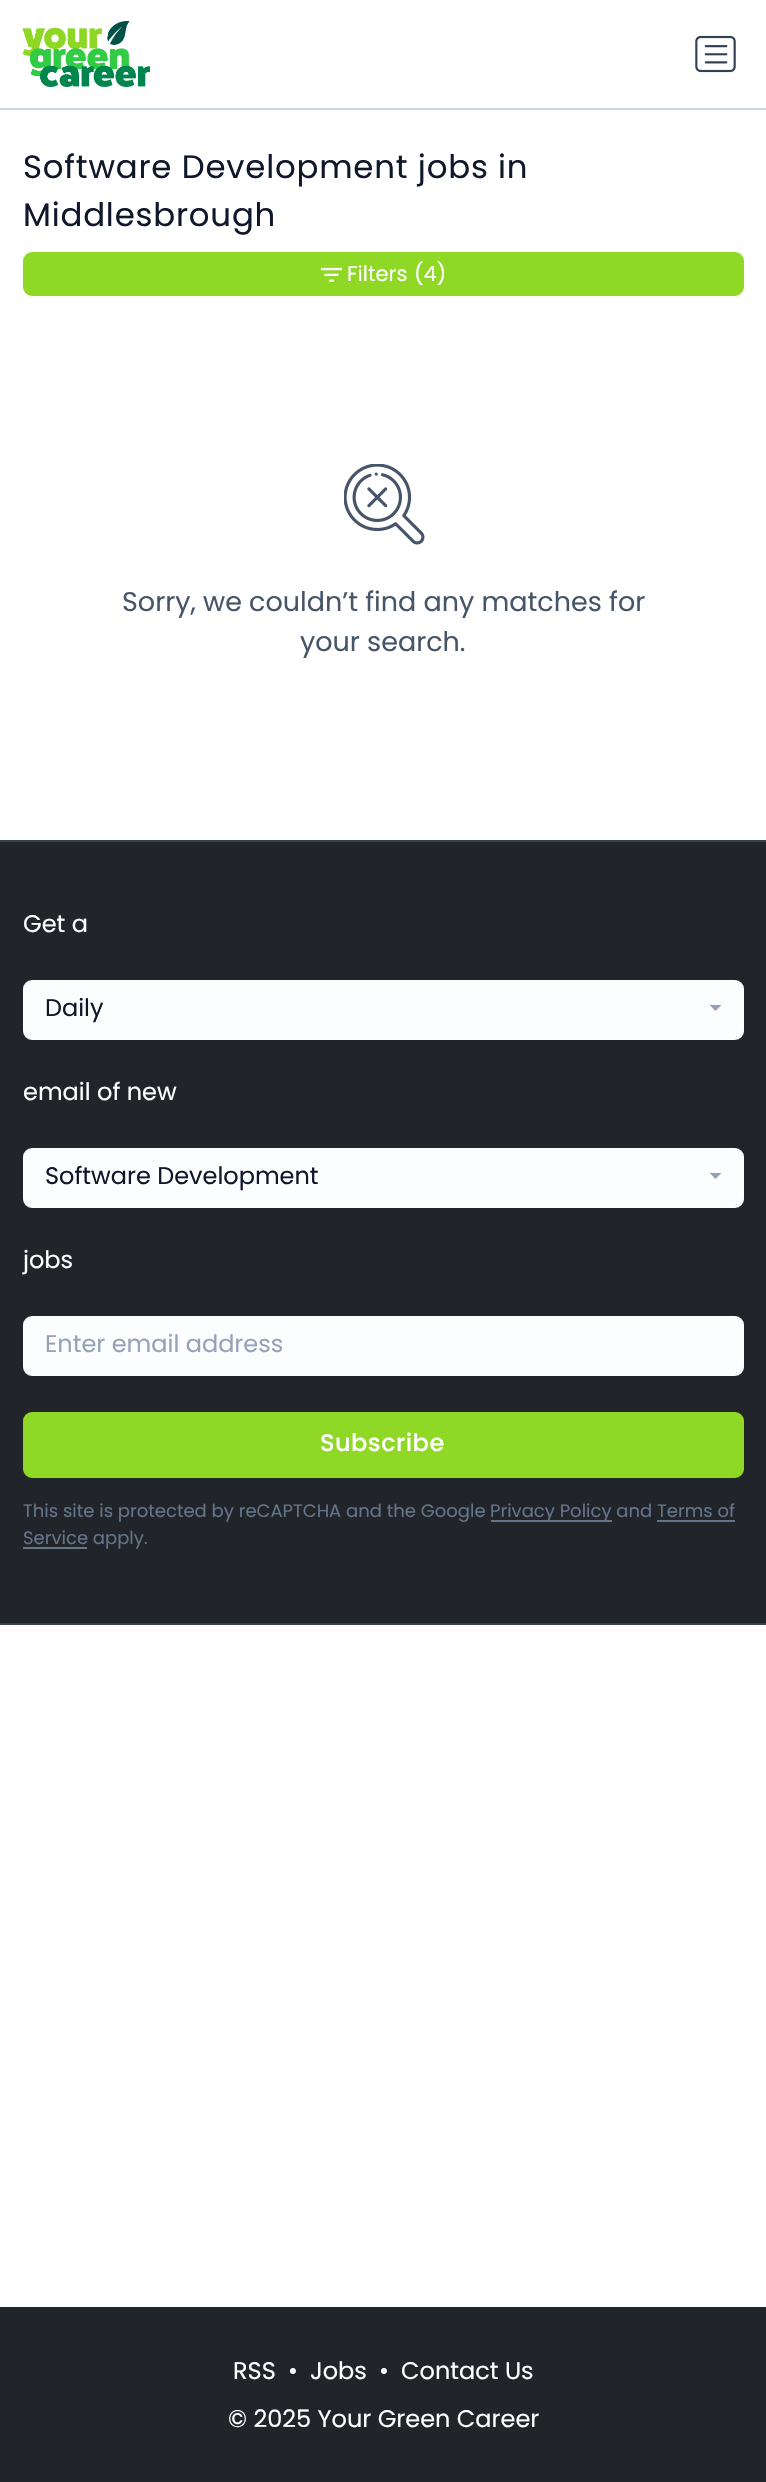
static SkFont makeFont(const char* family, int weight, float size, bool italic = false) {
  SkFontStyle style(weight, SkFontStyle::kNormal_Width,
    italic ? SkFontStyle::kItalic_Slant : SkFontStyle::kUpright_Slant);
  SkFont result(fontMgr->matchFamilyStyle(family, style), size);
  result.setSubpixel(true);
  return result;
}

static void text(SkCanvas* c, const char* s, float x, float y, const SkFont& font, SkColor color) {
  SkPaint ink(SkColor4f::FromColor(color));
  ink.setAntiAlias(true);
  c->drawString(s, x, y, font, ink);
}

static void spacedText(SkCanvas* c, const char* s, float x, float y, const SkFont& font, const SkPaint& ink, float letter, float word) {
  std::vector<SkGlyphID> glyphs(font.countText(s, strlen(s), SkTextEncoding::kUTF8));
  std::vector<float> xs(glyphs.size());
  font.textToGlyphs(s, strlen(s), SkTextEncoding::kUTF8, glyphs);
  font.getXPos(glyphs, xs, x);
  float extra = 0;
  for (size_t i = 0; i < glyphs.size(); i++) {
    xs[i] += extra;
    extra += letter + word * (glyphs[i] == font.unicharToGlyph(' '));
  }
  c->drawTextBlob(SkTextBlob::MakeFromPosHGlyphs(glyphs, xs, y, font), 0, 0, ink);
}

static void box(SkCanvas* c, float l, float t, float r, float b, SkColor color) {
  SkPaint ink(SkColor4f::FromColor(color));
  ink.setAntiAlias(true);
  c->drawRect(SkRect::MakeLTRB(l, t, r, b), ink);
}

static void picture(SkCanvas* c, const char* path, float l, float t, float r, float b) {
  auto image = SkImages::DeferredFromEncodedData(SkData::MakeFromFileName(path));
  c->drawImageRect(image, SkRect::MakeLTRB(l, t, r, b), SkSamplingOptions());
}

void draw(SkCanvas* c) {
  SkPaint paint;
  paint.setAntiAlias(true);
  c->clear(0xffffffff);
  box(c, 0, 108, 766, 110, 0xffcbd5e1);
  picture(c, "img_01.png", 22, 21, 150, 87);
  picture(c, "img_02.png", 695, 35, 736, 73);
  SkFont face1 = makeFont("Poppins", 400, 32.4f);
  paint.setColor(0xff0f172a);
  spacedText(c, "Software Development jobs in", 23, 178, face1, paint, 0.8f, 0);
  spacedText(c, "Middlesbrough", 23, 226, face1, paint, 0.8f, 0);
  paint.setColor(0xff8fd926);
  c->drawRoundRect(SkRect::MakeLTRB(24, 253, 743, 295), 8, 8, paint);
  paint.setStyle(SkPaint::kStroke_Style);
  paint.setStrokeWidth(2);
  c->drawRoundRect(SkRect::MakeLTRB(24, 253, 743, 295), 8, 8, paint);
  picture(c, "img_03.png", 321, 267, 342, 282);
  SkFont face2 = makeFont("Poppins", 400, 21);
  text(c, "Filters", 347, 281, face2, 0xffffffff);
  text(c, "(4)", 414, 281, face2, 0xffffffff);
  picture(c, "img_04.png", 344, 464, 425, 545);
  SkFont face3 = makeFont("Poppins", 400, 27);
  text(c, "Sorry, we couldn’t find any matches for", 122, 611, face3, 0xff475569);
  text(c, "your search.", 300, 651, face3, 0xff475569);
  box(c, 0, 842, 766, 1623, 0xff212529);
  box(c, 0, 840, 766, 842, 0xff334155);
  box(c, 0, 1623, 766, 1625, 0xff334155);
  SkFont face4 = makeFont("Poppins", 400, 24);
  text(c, "Get a", 23, 932, face4, 0xffffffff);
  paint.setStyle(SkPaint::kFill_Style);
  paint.setColor(0xfffcfdff);
  c->drawRoundRect(SkRect::MakeLTRB(24, 981, 743, 1039), 8, 8, paint);
  paint.setStyle(SkPaint::kStroke_Style);
  c->drawRoundRect(SkRect::MakeLTRB(24, 981, 743, 1039), 8, 8, paint);
  text(c, "Daily", 45, 1016, face4, 0xff0f172a);
  paint.setStyle(SkPaint::kFill_Style);
  paint.setColor(0xff94a3b8);
  c->drawPath(SkPathBuilder().moveTo(709.5f, 1005).lineTo(721.5f, 1005).lineTo(715.5f, 1011).close().detach(), paint);
  text(c, "email of new", 23, 1100, face4, 0xffffffff);
  paint.setColor(0xfffcfdff);
  c->drawRoundRect(SkRect::MakeLTRB(24, 1149, 743, 1207), 8, 8, paint);
  paint.setStyle(SkPaint::kStroke_Style);
  c->drawRoundRect(SkRect::MakeLTRB(24, 1149, 743, 1207), 8, 8, paint);
  text(c, "Software Development", 45, 1184, face4, 0xff0f172a);
  paint.setStyle(SkPaint::kFill_Style);
  paint.setColor(0xff94a3b8);
  c->drawPath(SkPathBuilder().moveTo(709.5f, 1173).lineTo(721.5f, 1173).lineTo(715.5f, 1179).close().detach(), paint);
  text(c, "jobs", 23, 1268, face4, 0xffffffff);
  paint.setColor(0xfffcfdff);
  c->drawRoundRect(SkRect::MakeLTRB(24, 1317, 743, 1375), 8, 8, paint);
  paint.setStyle(SkPaint::kStroke_Style);
  c->drawRoundRect(SkRect::MakeLTRB(24, 1317, 743, 1375), 8, 8, paint);
  text(c, "Enter email address", 45, 1352, face4, 0xff94a3b8);
  paint.setStyle(SkPaint::kFill_Style);
  paint.setColor(0xff8fd926);
  c->drawRoundRect(SkRect::MakeLTRB(24, 1413, 743, 1477), 8, 8, paint);
  paint.setStyle(SkPaint::kStroke_Style);
  c->drawRoundRect(SkRect::MakeLTRB(24, 1413, 743, 1477), 8, 8, paint);
  SkFont face5 = makeFont("Poppins", 500, 24);
  paint.setStyle(SkPaint::kFill_Style);
  paint.setColor(0xffffffff);
  spacedText(c, "Subscribe", 320, 1451, face5, paint, 0.5f, 0);
  SkFont face6 = makeFont("Poppins", 400, 18);
  text(c, "This site is protected by reCAPTCHA and the Google", 23, 1517, face6, 0xff64748b);
  box(c, 491, 1520, 612, 1522, 0xff64748b);
  text(c, "Privacy Policy and Terms of", 490, 1517, face6, 0xff64748b);
  box(c, 23, 1547, 87, 1549, 0xff64748b);
  text(c, "Service apply.", 23, 1544, face6, 0xff64748b);
  box(c, 657, 1520, 735, 1522, 0xff64748b);
  box(c, 0, 2307, 766, 2482, 0xff212529);
  text(c, "RSS", 233, 2379, face4, 0xffffffff);
  text(c, "•", 288, 2379, face4, 0xffffffff);
  text(c, "Jobs", 310, 2379, face4, 0xffffffff);
  text(c, "•", 379, 2379, face4, 0xffffffff);
  text(c, "Contact Us", 401, 2379, face4, 0xffffffff);
  text(c, "© 2025 Your Green Career", 228, 2427, face4, 0xffffffff);
}
